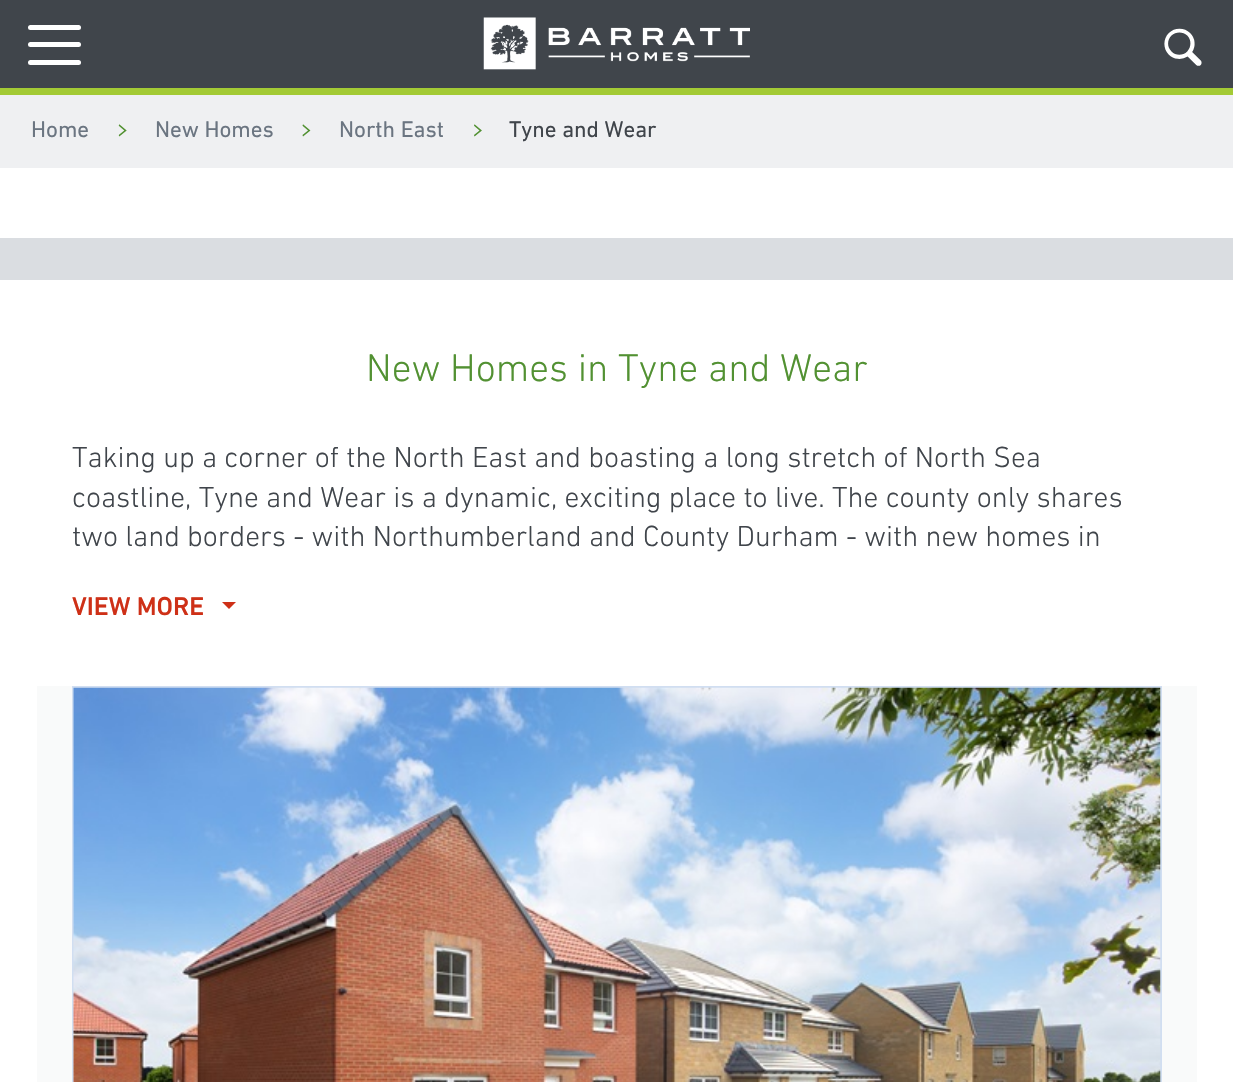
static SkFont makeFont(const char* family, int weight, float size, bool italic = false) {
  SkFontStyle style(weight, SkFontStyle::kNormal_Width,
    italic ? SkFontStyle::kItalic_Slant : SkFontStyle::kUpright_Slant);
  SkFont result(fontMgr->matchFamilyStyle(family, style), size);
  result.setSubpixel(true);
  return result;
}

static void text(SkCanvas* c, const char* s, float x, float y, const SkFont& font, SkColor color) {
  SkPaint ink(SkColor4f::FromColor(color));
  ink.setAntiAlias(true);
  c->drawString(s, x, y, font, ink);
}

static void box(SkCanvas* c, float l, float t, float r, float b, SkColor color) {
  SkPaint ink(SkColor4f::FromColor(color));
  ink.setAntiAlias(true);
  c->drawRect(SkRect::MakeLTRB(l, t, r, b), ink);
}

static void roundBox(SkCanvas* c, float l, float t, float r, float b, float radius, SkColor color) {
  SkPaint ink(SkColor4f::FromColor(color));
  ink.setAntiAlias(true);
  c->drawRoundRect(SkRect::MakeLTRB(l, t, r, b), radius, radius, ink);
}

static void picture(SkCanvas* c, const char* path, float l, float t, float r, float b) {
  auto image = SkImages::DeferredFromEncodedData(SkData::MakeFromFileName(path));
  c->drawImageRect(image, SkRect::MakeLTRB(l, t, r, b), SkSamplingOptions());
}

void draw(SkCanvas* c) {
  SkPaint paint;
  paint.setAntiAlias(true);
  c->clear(0xffffffff);
  box(c, 0, 0, 1233, 88, 0xff40454b);
  box(c, 0, 88, 1233, 95, 0xffa3ca35);
  roundBox(c, 28, 42, 81, 47, 2.5f, 0xffffffff);
  roundBox(c, 28, 25, 81, 30, 2.5f, 0xffffffff);
  roundBox(c, 28, 60, 81, 65, 2.5f, 0xffffffff);
  picture(c, "img_01.png", 483, 17, 750, 70);
  picture(c, "img_02.png", 1164, 28, 1202, 66);
  box(c, 0, 95, 1233, 168, 0xffeff0f2);
  SkFont face1 = makeFont("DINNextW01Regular", 400, 23);
  text(c, "Home", 31, 137, face1, 0xff6b7581);
  picture(c, "img_03.png", 118, 124, 127, 137);
  text(c, "New Homes", 155, 137, face1, 0xff6b7581);
  picture(c, "img_04.png", 302, 124, 311, 137);
  text(c, "North East", 339, 137, face1, 0xff6b7581);
  picture(c, "img_05.png", 474, 124, 482, 137);
  text(c, "Tyne and Wear", 509, 137, face1, 0xff40454b);
  box(c, 0, 238, 1233, 280, 0xffdadde1);
  SkFont face2 = makeFont("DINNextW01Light", 300, 39.4f);
  text(c, "New Homes in Tyne and Wear", 366, 381, face2, 0xff529132);
  SkFont face3 = makeFont("DINNextW01Light", 300, 29.55f);
  text(c, "Taking up a corner of the North East and boasting a long stretch of North Sea", 72, 467, face3, 0xff40454b);
  text(c, "coastline, Tyne and Wear is a dynamic, exciting place to live. The county only shares", 72, 507, face3, 0xff40454b);
  text(c, "two land borders - with Northumberland and County Durham - with new homes in", 72, 546, face3, 0xff40454b);
  SkFont face4 = makeFont("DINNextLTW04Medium", 500, 26.25f);
  text(c, "VIEW MORE", 72, 615, face4, 0xffce3017);
  paint.setColor(0xffce3017);
  c->drawPath(SkPathBuilder().moveTo(222, 602).lineTo(236, 602).lineTo(229, 609).close().detach(), paint);
  box(c, 37, 686, 1197, 1082, 0xfff9fafa);
  paint.setStyle(SkPaint::kStroke_Style);
  paint.setStrokeWidth(2);
  paint.setColor(0xffd1def1);
  c->drawRect(SkRect::MakeLTRB(73, 687, 1161, 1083), paint);
  picture(c, "img_06.png", 73, 687, 1161, 1082);
}
